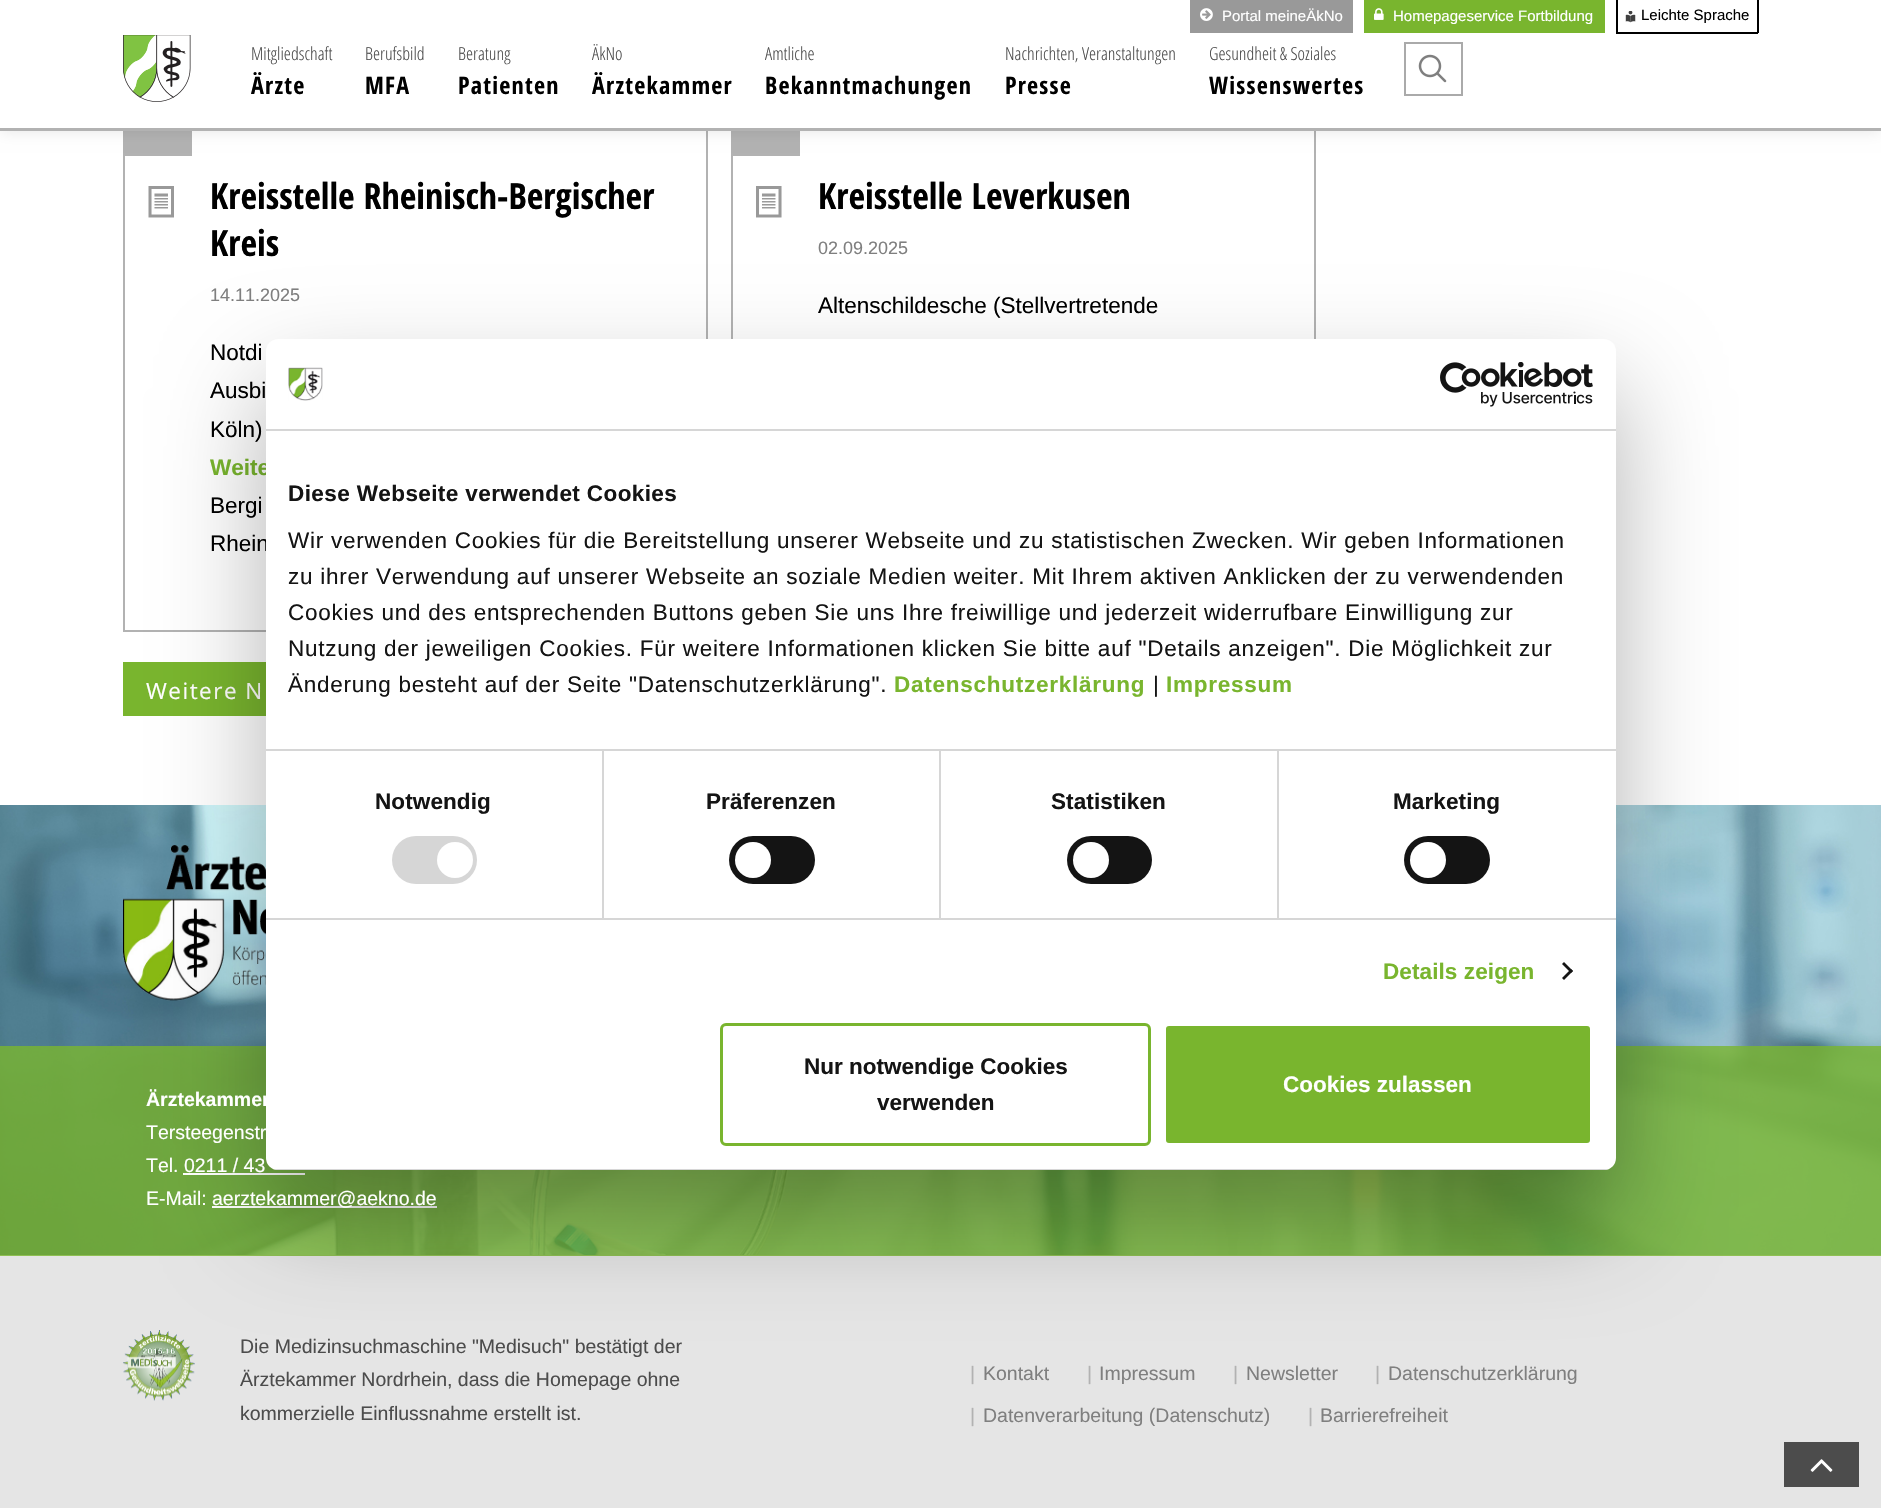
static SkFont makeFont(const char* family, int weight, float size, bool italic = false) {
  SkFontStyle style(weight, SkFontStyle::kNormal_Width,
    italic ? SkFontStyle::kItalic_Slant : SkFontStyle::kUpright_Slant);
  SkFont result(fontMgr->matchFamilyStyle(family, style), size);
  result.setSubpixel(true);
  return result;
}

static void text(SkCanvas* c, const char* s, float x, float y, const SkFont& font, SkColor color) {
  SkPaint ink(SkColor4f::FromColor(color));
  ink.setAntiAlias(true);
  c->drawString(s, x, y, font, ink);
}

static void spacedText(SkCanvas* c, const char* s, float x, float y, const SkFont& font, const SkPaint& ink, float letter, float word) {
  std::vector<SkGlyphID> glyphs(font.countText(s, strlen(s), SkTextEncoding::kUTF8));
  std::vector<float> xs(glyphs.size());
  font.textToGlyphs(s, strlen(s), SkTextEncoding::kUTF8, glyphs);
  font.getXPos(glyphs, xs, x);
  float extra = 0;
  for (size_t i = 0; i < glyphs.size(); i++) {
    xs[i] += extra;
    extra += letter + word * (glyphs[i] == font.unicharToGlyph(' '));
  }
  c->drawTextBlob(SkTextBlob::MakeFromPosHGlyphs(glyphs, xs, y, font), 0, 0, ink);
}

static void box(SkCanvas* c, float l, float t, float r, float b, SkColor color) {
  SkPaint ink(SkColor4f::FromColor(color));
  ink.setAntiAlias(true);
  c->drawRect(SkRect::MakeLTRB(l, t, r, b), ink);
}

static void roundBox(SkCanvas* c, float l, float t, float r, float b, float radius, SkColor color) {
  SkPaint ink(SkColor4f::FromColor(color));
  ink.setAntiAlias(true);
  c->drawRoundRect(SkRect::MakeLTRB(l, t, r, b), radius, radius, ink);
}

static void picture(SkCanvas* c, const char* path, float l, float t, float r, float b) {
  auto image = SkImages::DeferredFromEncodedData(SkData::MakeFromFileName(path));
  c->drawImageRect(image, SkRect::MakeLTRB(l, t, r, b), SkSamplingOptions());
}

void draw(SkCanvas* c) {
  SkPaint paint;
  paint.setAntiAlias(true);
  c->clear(0xffffffff);
  paint.setStyle(SkPaint::kStroke_Style);
  paint.setStrokeWidth(2);
  paint.setColor(0xffb2b2b2);
  c->drawRect(SkRect::MakeLTRB(124, 88, 707, 631), paint);
  box(c, 125, 131, 192, 156, 0xffb2b2b2);
  c->drawRect(SkRect::MakeLTRB(732, 88, 1315, 631), paint);
  box(c, 733, 131, 800, 156, 0xffb2b2b2);
  paint.setStyle(SkPaint::kFill_Style);
  paint.setColor(0x1a000000);
  paint.setMaskFilter(SkMaskFilter::MakeBlur(kNormal_SkBlurStyle, 7.5f));
  c->drawRect(SkRect::MakeLTRB(0, -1, 1881, 131), paint);
  paint.setMaskFilter(nullptr);
  box(c, 0, 0, 1881, 128, 0xffffffff);
  box(c, 0, 128, 1881, 131, 0xffb2b2b2);
  box(c, 1190, 0, 1353, 33, 0xff999999);
  picture(c, "img_01.png", 1200, 8, 1213, 21);
  SkFont face1 = makeFont("Liberation Sans", 400, 15);
  text(c, "Portal meineÄkNo", 1222, 21, face1, 0xffffffff);
  box(c, 1364, 0, 1605, 33, 0xff79b52e);
  picture(c, "img_02.png", 1374, 8, 1384, 20);
  text(c, "Homepageservice Fortbildung", 1393, 21, face1, 0xffffffff);
  box(c, 1757, 0, 1759, 33, 0xff000000);
  box(c, 1616, 32, 1758, 34, 0xff000000);
  box(c, 1616, 0, 1618, 33, 0xff000000);
  picture(c, "img_03.png", 1625, 11, 1636, 23);
  text(c, "Leichte Sprache", 1641, 20, face1, 0xff000000);
  picture(c, "img_04.png", 123, 35, 191, 102);
  SkFont face2 = makeFont("Open Sans Condensed", 300, 18);
  text(c, "Mitgliedschaft", 251, 60, face2, 0xff4c4c4c);
  SkFont face3 = makeFont("Open Sans Condensed", 700, 24);
  paint.setColor(0xff000000);
  spacedText(c, "Ärzte", 251, 94, face3, paint, 1.25f, 0);
  text(c, "Berufsbild", 365, 60, face2, 0xff4c4c4c);
  spacedText(c, "MFA", 365, 94, face3, paint, 1.25f, 0);
  text(c, "Beratung", 458, 60, face2, 0xff4c4c4c);
  spacedText(c, "Patienten", 458, 94, face3, paint, 1.25f, 0);
  text(c, "ÄkNo", 592, 60, face2, 0xff4c4c4c);
  spacedText(c, "Ärztekammer", 592, 94, face3, paint, 1.25f, 0);
  text(c, "Amtliche", 765, 60, face2, 0xff4c4c4c);
  spacedText(c, "Bekanntmachungen", 765, 94, face3, paint, 1.25f, 0);
  text(c, "Nachrichten, Veranstaltungen", 1005, 60, face2, 0xff4c4c4c);
  spacedText(c, "Presse", 1005, 94, face3, paint, 1.25f, 0);
  text(c, "Gesundheit & Soziales", 1209, 60, face2, 0xff4c4c4c);
  spacedText(c, "Wissenswertes", 1209, 94, face3, paint, 1.25f, 0);
  paint.setStyle(SkPaint::kStroke_Style);
  paint.setColor(0xffaaaaaa);
  c->drawRect(SkRect::MakeLTRB(1405, 43, 1462, 95), paint);
  picture(c, "img_05.png", 1418, 54, 1447, 83);
  picture(c, "img_06.png", 148, 186, 174, 218);
  SkFont face4 = makeFont("Open Sans Condensed", 700, 36);
  text(c, "Kreisstelle Rheinisch-Bergischer", 210, 209, face4, 0xff000000);
  text(c, "Kreis", 210, 256, face4, 0xff000000);
  SkFont face5 = makeFont("Liberation Sans", 400, 18);
  text(c, "14.11.2025", 210, 301, face5, 0xff7f7f7f);
  SkFont face6 = makeFont("Liberation Sans", 400, 22.5f);
  text(c, "Notdi", 210, 360, face6, 0xff000000);
  text(c, "Ausbi", 210, 398, face6, 0xff000000);
  text(c, "Köln)", 210, 437, face6, 0xff000000);
  SkFont face7 = makeFont("Liberation Sans", 700, 22.5f);
  text(c, "Weite", 210, 475, face7, 0xff79b52e);
  text(c, "Bergi", 210, 513, face6, 0xff000000);
  text(c, "Rhein", 210, 551, face6, 0xff000000);
  picture(c, "img_07.png", 756, 186, 782, 218);
  text(c, "Kreisstelle Leverkusen", 818, 209, face4, 0xff000000);
  text(c, "02.09.2025", 818, 254, face5, 0xff7f7f7f);
  text(c, "Altenschildesche (Stellvertretende", 818, 313, face6, 0xff000000);
  box(c, 123, 662, 266, 716, 0xff79b52e);
  SkFont face8 = makeFont("Open Sans", 400, 22.5f);
  paint.setStyle(SkPaint::kFill_Style);
  paint.setColor(0xffffffff);
  spacedText(c, "Weitere N", 146, 699, face8, paint, 1.5f, 0);
  box(c, 0, 1255, 1881, 1508, 0xffe5e5e5);
  picture(c, "img_10.png", 0, 805, 1881, 1255);
  picture(c, "img_11.png", 123, 845, 266, 1001);
  box(c, 0, 1046, 1881, 1256, 0xcc79b52e);
  box(c, 183, 1173, 305, 1175, 0xffffffff);
  box(c, 212, 1206, 437, 1208, 0xffffffff);
  picture(c, "img_12.png", 123, 1330, 195, 1401);
  paint.setColor(0x4d000000);
  paint.setMaskFilter(SkMaskFilter::MakeBlur(kNormal_SkBlurStyle, 51));
  c->drawRoundRect(SkRect::MakeLTRB(266, 387, 1616, 1218), 12, 12, paint);
  paint.setMaskFilter(nullptr);
  roundBox(c, 266, 339, 1616, 1170, 12, 0xffffffff);
  box(c, 266, 429, 1616, 431, 0xffd6d6d6);
  picture(c, "img_08.png", 288, 367, 323, 401);
  picture(c, "img_09.png", 1440, 362, 1593, 407);
  box(c, 602, 750, 604, 918, 0xffd6d6d6);
  box(c, 939, 750, 941, 918, 0xffd6d6d6);
  box(c, 1277, 750, 1279, 918, 0xffd6d6d6);
  box(c, 266, 749, 1616, 751, 0xffd6d6d6);
  paint.setColor(0xff141414);
  spacedText(c, "Diese Webseite verwendet Cookies", 288, 501, face7, paint, 0.4f, 0);
  spacedText(c, "Wir verwenden Cookies für die Bereitstellung unserer Webseite und zu statistischen Zwecken. Wir geben Informationen", 288, 548, face6, paint, 0.75f, 0);
  spacedText(c, "zu ihrer Verwendung auf unserer Webseite an soziale Medien weiter. Mit Ihrem aktiven Anklicken der zu verwendenden", 288, 584, face6, paint, 0.75f, 0);
  spacedText(c, "Cookies und des entsprechenden Buttons geben Sie uns Ihre freiwillige und jederzeit widerrufbare Einwilligung zur", 288, 620, face6, paint, 0.75f, 0);
  spacedText(c, "Nutzung der jeweiligen Cookies. Für weitere Informationen klicken Sie bitte auf \"Details anzeigen\". Die Möglichkeit zur", 288, 656, face6, paint, 0.75f, 0);
  spacedText(c, "Änderung besteht auf der Seite \"Datenschutzerklärung\".", 288, 692, face6, paint, 0.75f, 0);
  paint.setColor(0xff79b52e);
  spacedText(c, "Datenschutzerklärung", 894, 692, face7, paint, 0.75f, 0);
  paint.setColor(0xff141414);
  spacedText(c, "|", 1153, 692, face6, paint, 0.75f, 0);
  paint.setColor(0xff79b52e);
  spacedText(c, "Impressum", 1166, 692, face7, paint, 0.75f, 0);
  box(c, 266, 918, 1616, 920, 0xffd6d6d6);
  paint.setColor(0xff141414);
  spacedText(c, "Notwendig", 375, 809, face7, paint, 0.1f, 0);
  roundBox(c, 392, 836, 477, 884, 24, 0xffd6d6d6);
  paint.setColor(0xffffffff);
  c->drawCircle(455, 860, 18, paint);
  paint.setColor(0xff141414);
  spacedText(c, "Präferenzen", 706, 809, face7, paint, 0.1f, 0);
  roundBox(c, 729, 836, 815, 884, 24, 0xff141414);
  paint.setColor(0xffffffff);
  c->drawCircle(753, 860, 18, paint);
  paint.setColor(0xff141414);
  spacedText(c, "Statistiken", 1051, 809, face7, paint, 0.1f, 0);
  roundBox(c, 1067, 836, 1152, 884, 24, 0xff141414);
  paint.setColor(0xffffffff);
  c->drawCircle(1091, 860, 18, paint);
  paint.setColor(0xff141414);
  spacedText(c, "Marketing", 1393, 809, face7, paint, 0.1f, 0);
  roundBox(c, 1404, 836, 1490, 884, 24, 0xff141414);
  paint.setColor(0xffffffff);
  c->drawCircle(1428, 860, 18, paint);
  paint.setColor(0xff79b52e);
  spacedText(c, "Details zeigen", 1383, 979, face7, paint, 0.1f, 0);
  paint.setColor(0xff141414);
  c->drawPath(SkPathBuilder().moveTo(1564, 962).lineTo(1573, 971).lineTo(1571, 973).lineTo(1562, 964).close().detach(), paint);
  c->drawPath(SkPathBuilder().moveTo(1571, 969).lineTo(1573, 971).lineTo(1564, 980).lineTo(1562, 978).close().detach(), paint);
  c->save();
  c->clipPath(SkPathBuilder().moveTo(278, 339).lineTo(1604, 339).cubicTo(1610.5f, 339, 1616, 344.5f, 1616, 351).lineTo(1616, 1158).cubicTo(1616, 1164.5f, 1610.5f, 1170, 1604, 1170).lineTo(278, 1170).cubicTo(271.5f, 1170, 266, 1164.5f, 266, 1158).lineTo(266, 351).cubicTo(266, 344.5f, 271.5f, 339, 278, 339).close().detach(), true);
  box(c, 266, 1169, 1616, 1170, 0xffd6d6d6);
  c->restore();
  paint.setStyle(SkPaint::kStroke_Style);
  paint.setStrokeWidth(3);
  paint.setColor(0xff79b52e);
  c->drawRoundRect(SkRect::MakeLTRB(721.5f, 1024.5f, 1149.5f, 1144.5f), 4.5f, 4.5f, paint);
  text(c, "Nur notwendige Cookies", 804, 1074, face7, 0xff141414);
  text(c, "verwenden", 877, 1110, face7, 0xff141414);
  paint.setStyle(SkPaint::kFill_Style);
  c->drawRoundRect(SkRect::MakeLTRB(1164.5f, 1024.5f, 1591.5f, 1144.5f), 4.5f, 4.5f, paint);
  paint.setStyle(SkPaint::kStroke_Style);
  paint.setColor(0xffffffff);
  c->drawRoundRect(SkRect::MakeLTRB(1164.5f, 1024.5f, 1591.5f, 1144.5f), 4.5f, 4.5f, paint);
  text(c, "Cookies zulassen", 1283, 1092, face7, 0xffffffff);
  SkFont face9 = makeFont("Liberation Sans", 700, 19.5f);
  text(c, "Ärztekammer", 146, 1106, face9, 0xffffffff);
  SkFont face10 = makeFont("Liberation Sans", 400, 19.5f);
  text(c, "Tersteegenstr", 146, 1139, face10, 0xffffffff);
  text(c, "Tel. 0211 / 43", 146, 1172, face10, 0xffffffff);
  text(c, "E-Mail:", 146, 1205, face10, 0xffffffff);
  text(c, "aerztekammer@aekno.de", 212, 1205, face10, 0xffffffff);
  text(c, "Die Medizinsuchmaschine \"Medisuch\" bestätigt der", 240, 1353, face10, 0xff4c4c4c);
  text(c, "Ärztekammer Nordrhein, dass die Homepage ohne", 240, 1386, face10, 0xff4c4c4c);
  text(c, "kommerzielle Einflussnahme erstellt ist.", 240, 1420, face10, 0xff4c4c4c);
  text(c, "|", 970, 1380, face10, 0xffb2b2b2);
  text(c, "Kontakt", 983, 1380, face10, 0xff7f7f7f);
  text(c, "|", 1087, 1380, face10, 0xffb2b2b2);
  text(c, "Impressum", 1099, 1380, face10, 0xff7f7f7f);
  text(c, "|", 1233, 1380, face10, 0xffb2b2b2);
  text(c, "Newsletter", 1246, 1380, face10, 0xff7f7f7f);
  text(c, "|", 1375, 1380, face10, 0xffb2b2b2);
  text(c, "Datenschutzerklärung", 1388, 1380, face10, 0xff7f7f7f);
  text(c, "|", 970, 1422, face10, 0xffb2b2b2);
  text(c, "Datenverarbeitung (Datenschutz)", 983, 1422, face10, 0xff7f7f7f);
  text(c, "|", 1308, 1422, face10, 0xffb2b2b2);
  text(c, "Barrierefreiheit", 1320, 1422, face10, 0xff7f7f7f);
  box(c, 1784, 1442, 1859, 1487, 0xff4c4c4c);
  picture(c, "img_13.png", 1810, 1459, 1833, 1472);
}
